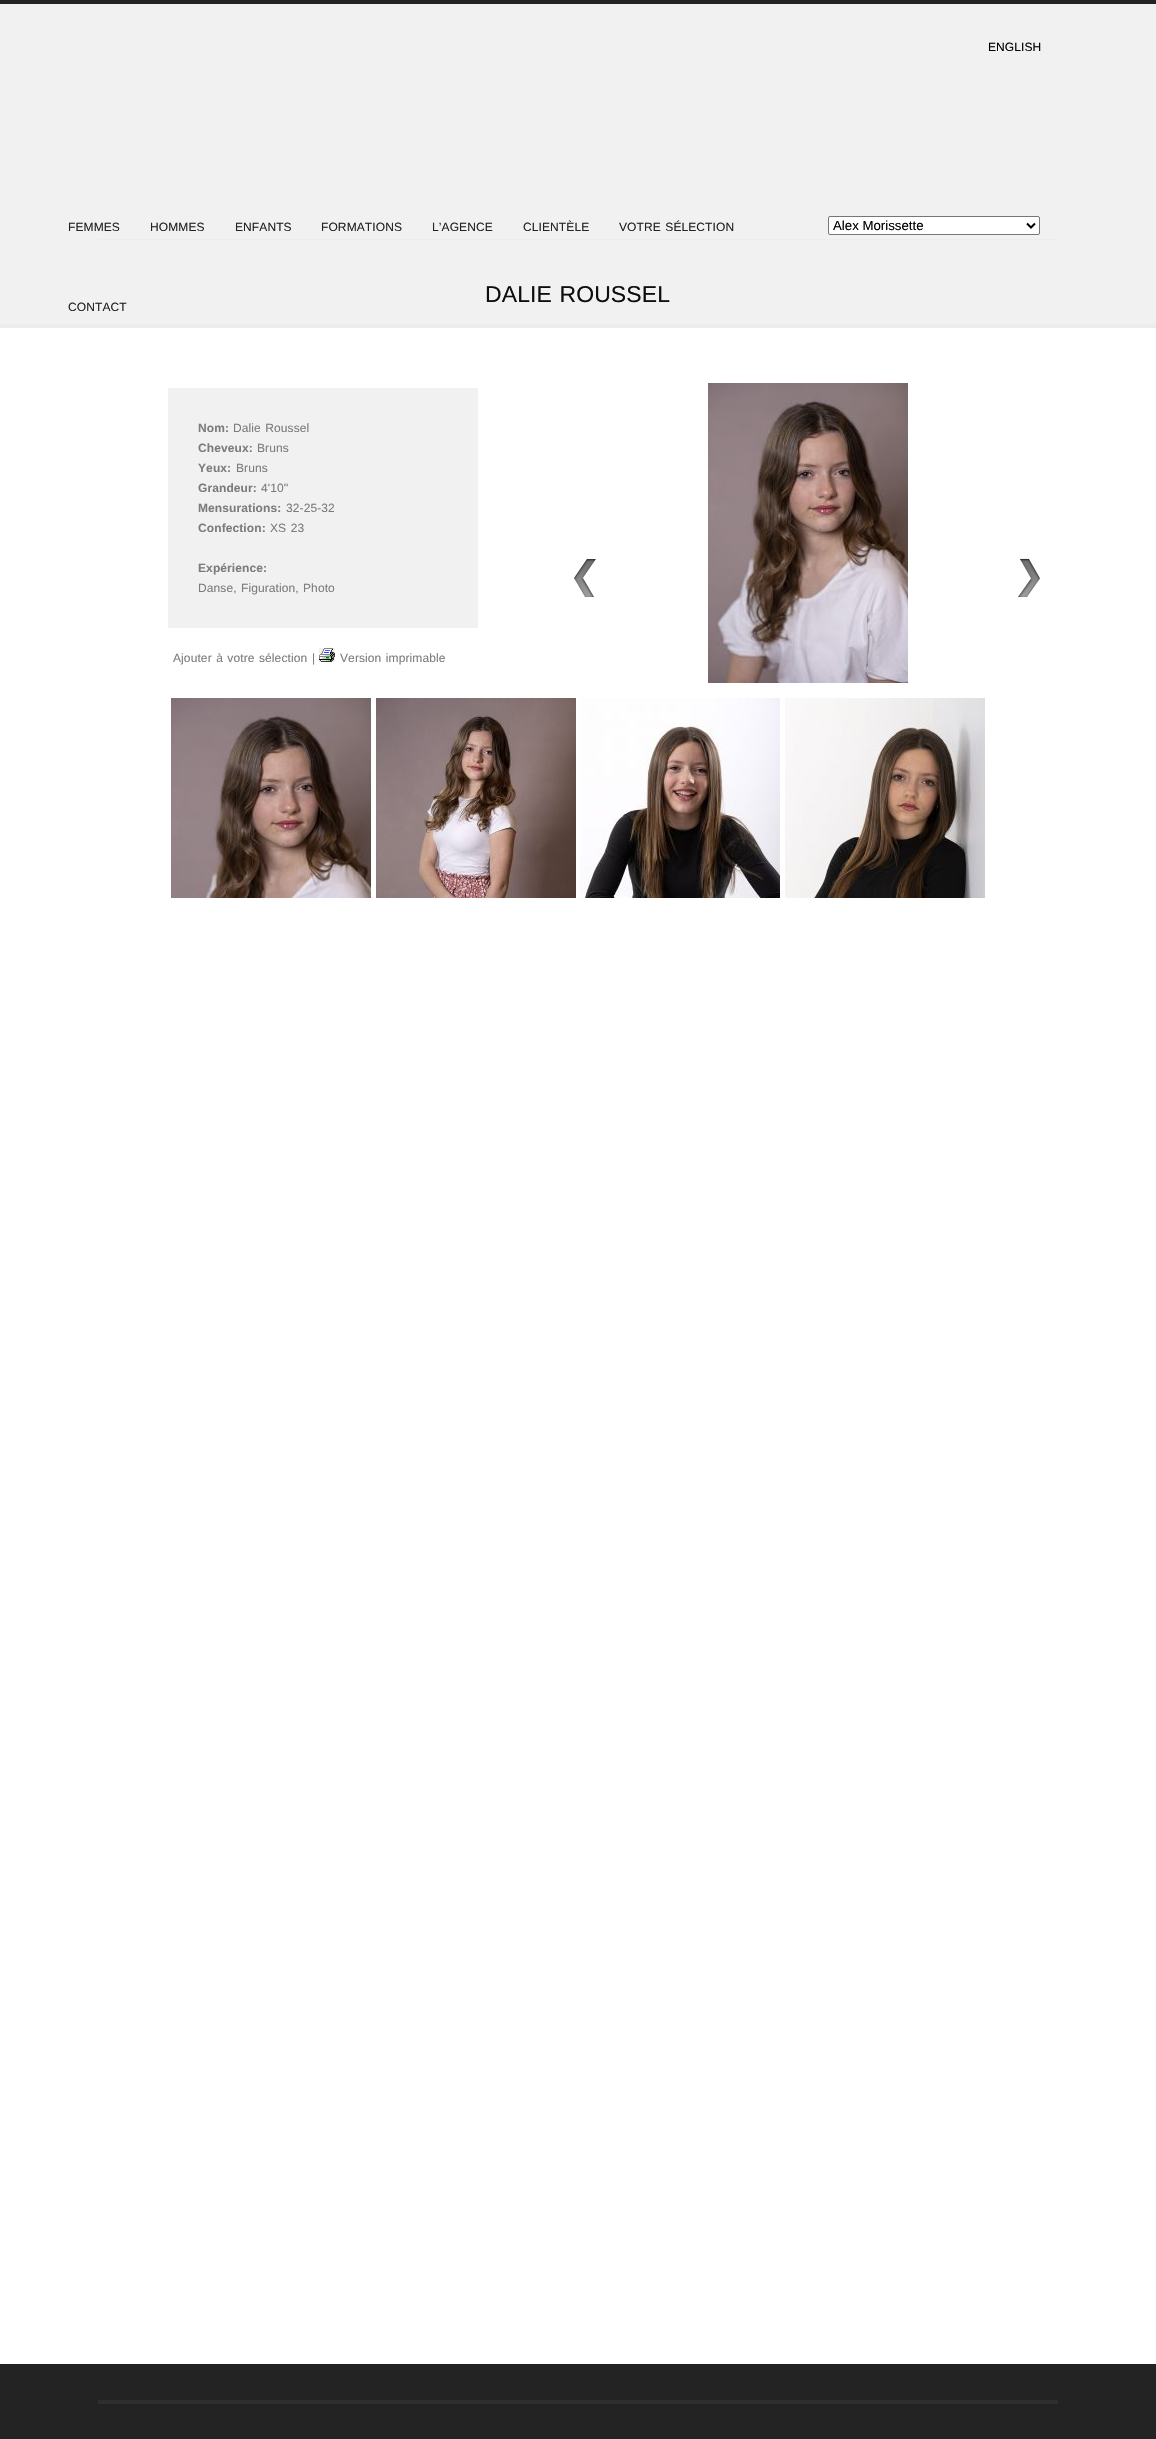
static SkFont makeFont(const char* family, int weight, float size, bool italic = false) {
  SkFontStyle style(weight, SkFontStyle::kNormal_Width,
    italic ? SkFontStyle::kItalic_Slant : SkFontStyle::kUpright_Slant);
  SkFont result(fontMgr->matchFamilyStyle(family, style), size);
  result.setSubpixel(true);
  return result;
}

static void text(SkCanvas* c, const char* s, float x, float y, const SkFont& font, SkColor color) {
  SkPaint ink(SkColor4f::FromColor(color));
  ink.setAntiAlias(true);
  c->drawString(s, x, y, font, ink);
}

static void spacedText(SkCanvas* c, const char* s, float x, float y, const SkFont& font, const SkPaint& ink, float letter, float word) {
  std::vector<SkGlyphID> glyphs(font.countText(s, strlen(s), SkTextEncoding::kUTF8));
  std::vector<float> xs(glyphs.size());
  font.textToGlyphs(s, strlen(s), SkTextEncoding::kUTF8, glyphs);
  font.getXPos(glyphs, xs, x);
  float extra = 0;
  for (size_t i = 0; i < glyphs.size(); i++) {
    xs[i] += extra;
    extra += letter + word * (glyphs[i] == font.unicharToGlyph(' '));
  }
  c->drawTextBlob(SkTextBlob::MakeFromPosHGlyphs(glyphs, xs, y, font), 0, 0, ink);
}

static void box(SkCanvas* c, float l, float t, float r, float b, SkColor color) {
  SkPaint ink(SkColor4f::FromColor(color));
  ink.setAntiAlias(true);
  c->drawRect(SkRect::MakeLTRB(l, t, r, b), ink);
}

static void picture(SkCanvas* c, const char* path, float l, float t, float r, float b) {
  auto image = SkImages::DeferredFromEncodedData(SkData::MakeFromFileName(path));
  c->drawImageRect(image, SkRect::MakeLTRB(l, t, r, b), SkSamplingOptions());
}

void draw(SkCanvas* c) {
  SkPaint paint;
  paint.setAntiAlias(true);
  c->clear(0xffffffff);
  box(c, 0, 4, 1156, 324, 0xfff1f1f1);
  box(c, 0, 0, 1156, 4, 0xff232323);
  SkFont face1 = makeFont("Liberation Sans", 400, 12);
  paint.setColor(0xff000000);
  spacedText(c, "ENGLISH", 988, 51, face1, paint, 0.1f, 0);
  paint.setColor(0xff232323);
  spacedText(c, "FEMMES", 68, 231, face1, paint, 0.1f, 0);
  spacedText(c, "HOMMES", 150, 231, face1, paint, 0.1f, 0);
  spacedText(c, "ENFANTS", 235, 231, face1, paint, 0.1f, 0);
  spacedText(c, "FORMATIONS", 321, 231, face1, paint, 0.1f, 0);
  spacedText(c, "L’AGENCE", 432, 231, face1, paint, 0.1f, 0);
  spacedText(c, "CLIENTÈLE", 523, 231, face1, paint, 0.1f, 0);
  spacedText(c, "VOTRE SÉLECTION", 619, 231, face1, paint, 0.1f, 1);
  spacedText(c, "CONTACT", 68, 311, face1, paint, 0.1f, 0);
  paint.setColor(0xffffffff);
  c->drawRoundRect(SkRect::MakeLTRB(828.5f, 216.5f, 1039.5f, 234.5f), 1.5f, 1.5f, paint);
  paint.setStyle(SkPaint::kStroke_Style);
  paint.setStrokeWidth(1);
  paint.setColor(0xff767676);
  c->drawRoundRect(SkRect::MakeLTRB(828.5f, 216.5f, 1039.5f, 234.5f), 1.5f, 1.5f, paint);
  paint.setStrokeWidth(2);
  paint.setColor(0xff000000);
  c->drawPath(SkPathBuilder().moveTo(1027, 223.5f).lineTo(1031, 227.5f).lineTo(1035, 223.5f).detach(), paint);
  SkFont face2 = makeFont("Liberation Sans", 400, 13.25f);
  text(c, "Alex Morissette", 833, 230, face2, 0xff000000);
  box(c, 98, 239, 1058, 240, 0xffececec);
  box(c, 0, 324, 1156, 328, 0xffececec);
  SkFont face3 = makeFont("Liberation Sans", 400, 23);
  paint.setStyle(SkPaint::kFill_Style);
  paint.setColor(0xff0e0e0e);
  spacedText(c, "DALIE ROUSSEL", 485, 302, face3, paint, 0.1f, 1);
  box(c, 168, 388, 478, 628, 0xfff1f1f1);
  SkFont face4 = makeFont("Liberation Sans", 700, 12);
  paint.setColor(0xff7c7c7c);
  spacedText(c, "Nom:", 198, 432, face4, paint, 0.1f, 0);
  spacedText(c, "Dalie Roussel", 233, 432, face1, paint, 0.1f, 1);
  spacedText(c, "Cheveux:", 198, 452, face4, paint, 0.1f, 0);
  spacedText(c, "Bruns", 257, 452, face1, paint, 0.1f, 0);
  spacedText(c, "Yeux:", 198, 472, face4, paint, 0.1f, 0);
  spacedText(c, "Bruns", 236, 472, face1, paint, 0.1f, 0);
  spacedText(c, "Grandeur:", 198, 492, face4, paint, 0.1f, 0);
  spacedText(c, "4'10''", 261, 492, face1, paint, 0.1f, 0);
  spacedText(c, "Mensurations:", 198, 512, face4, paint, 0.1f, 0);
  spacedText(c, "32-25-32", 286, 512, face1, paint, 0.1f, 0);
  spacedText(c, "Confection:", 198, 532, face4, paint, 0.1f, 0);
  spacedText(c, "XS 23", 270, 532, face1, paint, 0.1f, 1);
  spacedText(c, "Expérience:", 198, 572, face4, paint, 0.1f, 0);
  spacedText(c, "Danse,", 198, 592, face1, paint, 0.1f, 0);
  spacedText(c, "Figuration,", 241, 592, face1, paint, 0.1f, 0);
  spacedText(c, "Photo", 303, 592, face1, paint, 0.1f, 0);
  spacedText(c, "Ajouter à votre sélection", 173, 662, face1, paint, 0.1f, 1);
  spacedText(c, "|", 312, 662, face1, paint, 0.1f, 0);
  picture(c, "img_01.png", 319, 648, 335, 662);
  spacedText(c, "Version imprimable", 340, 662, face1, paint, 0.1f, 1);
  picture(c, "img_02.png", 574, 559, 596, 597);
  picture(c, "img_03.png", 708, 383, 908, 683);
  picture(c, "img_04.png", 1018, 558, 1041, 597);
  picture(c, "img_05.png", 171, 698, 371, 898);
  picture(c, "img_06.png", 376, 698, 576, 898);
  picture(c, "img_07.png", 580, 698, 780, 898);
  picture(c, "img_08.png", 785, 698, 985, 898);
  box(c, 0, 2364, 1156, 2439, 0xff232323);
  box(c, 98, 2400, 1058, 2404, 0xff2e2e2e);
}
